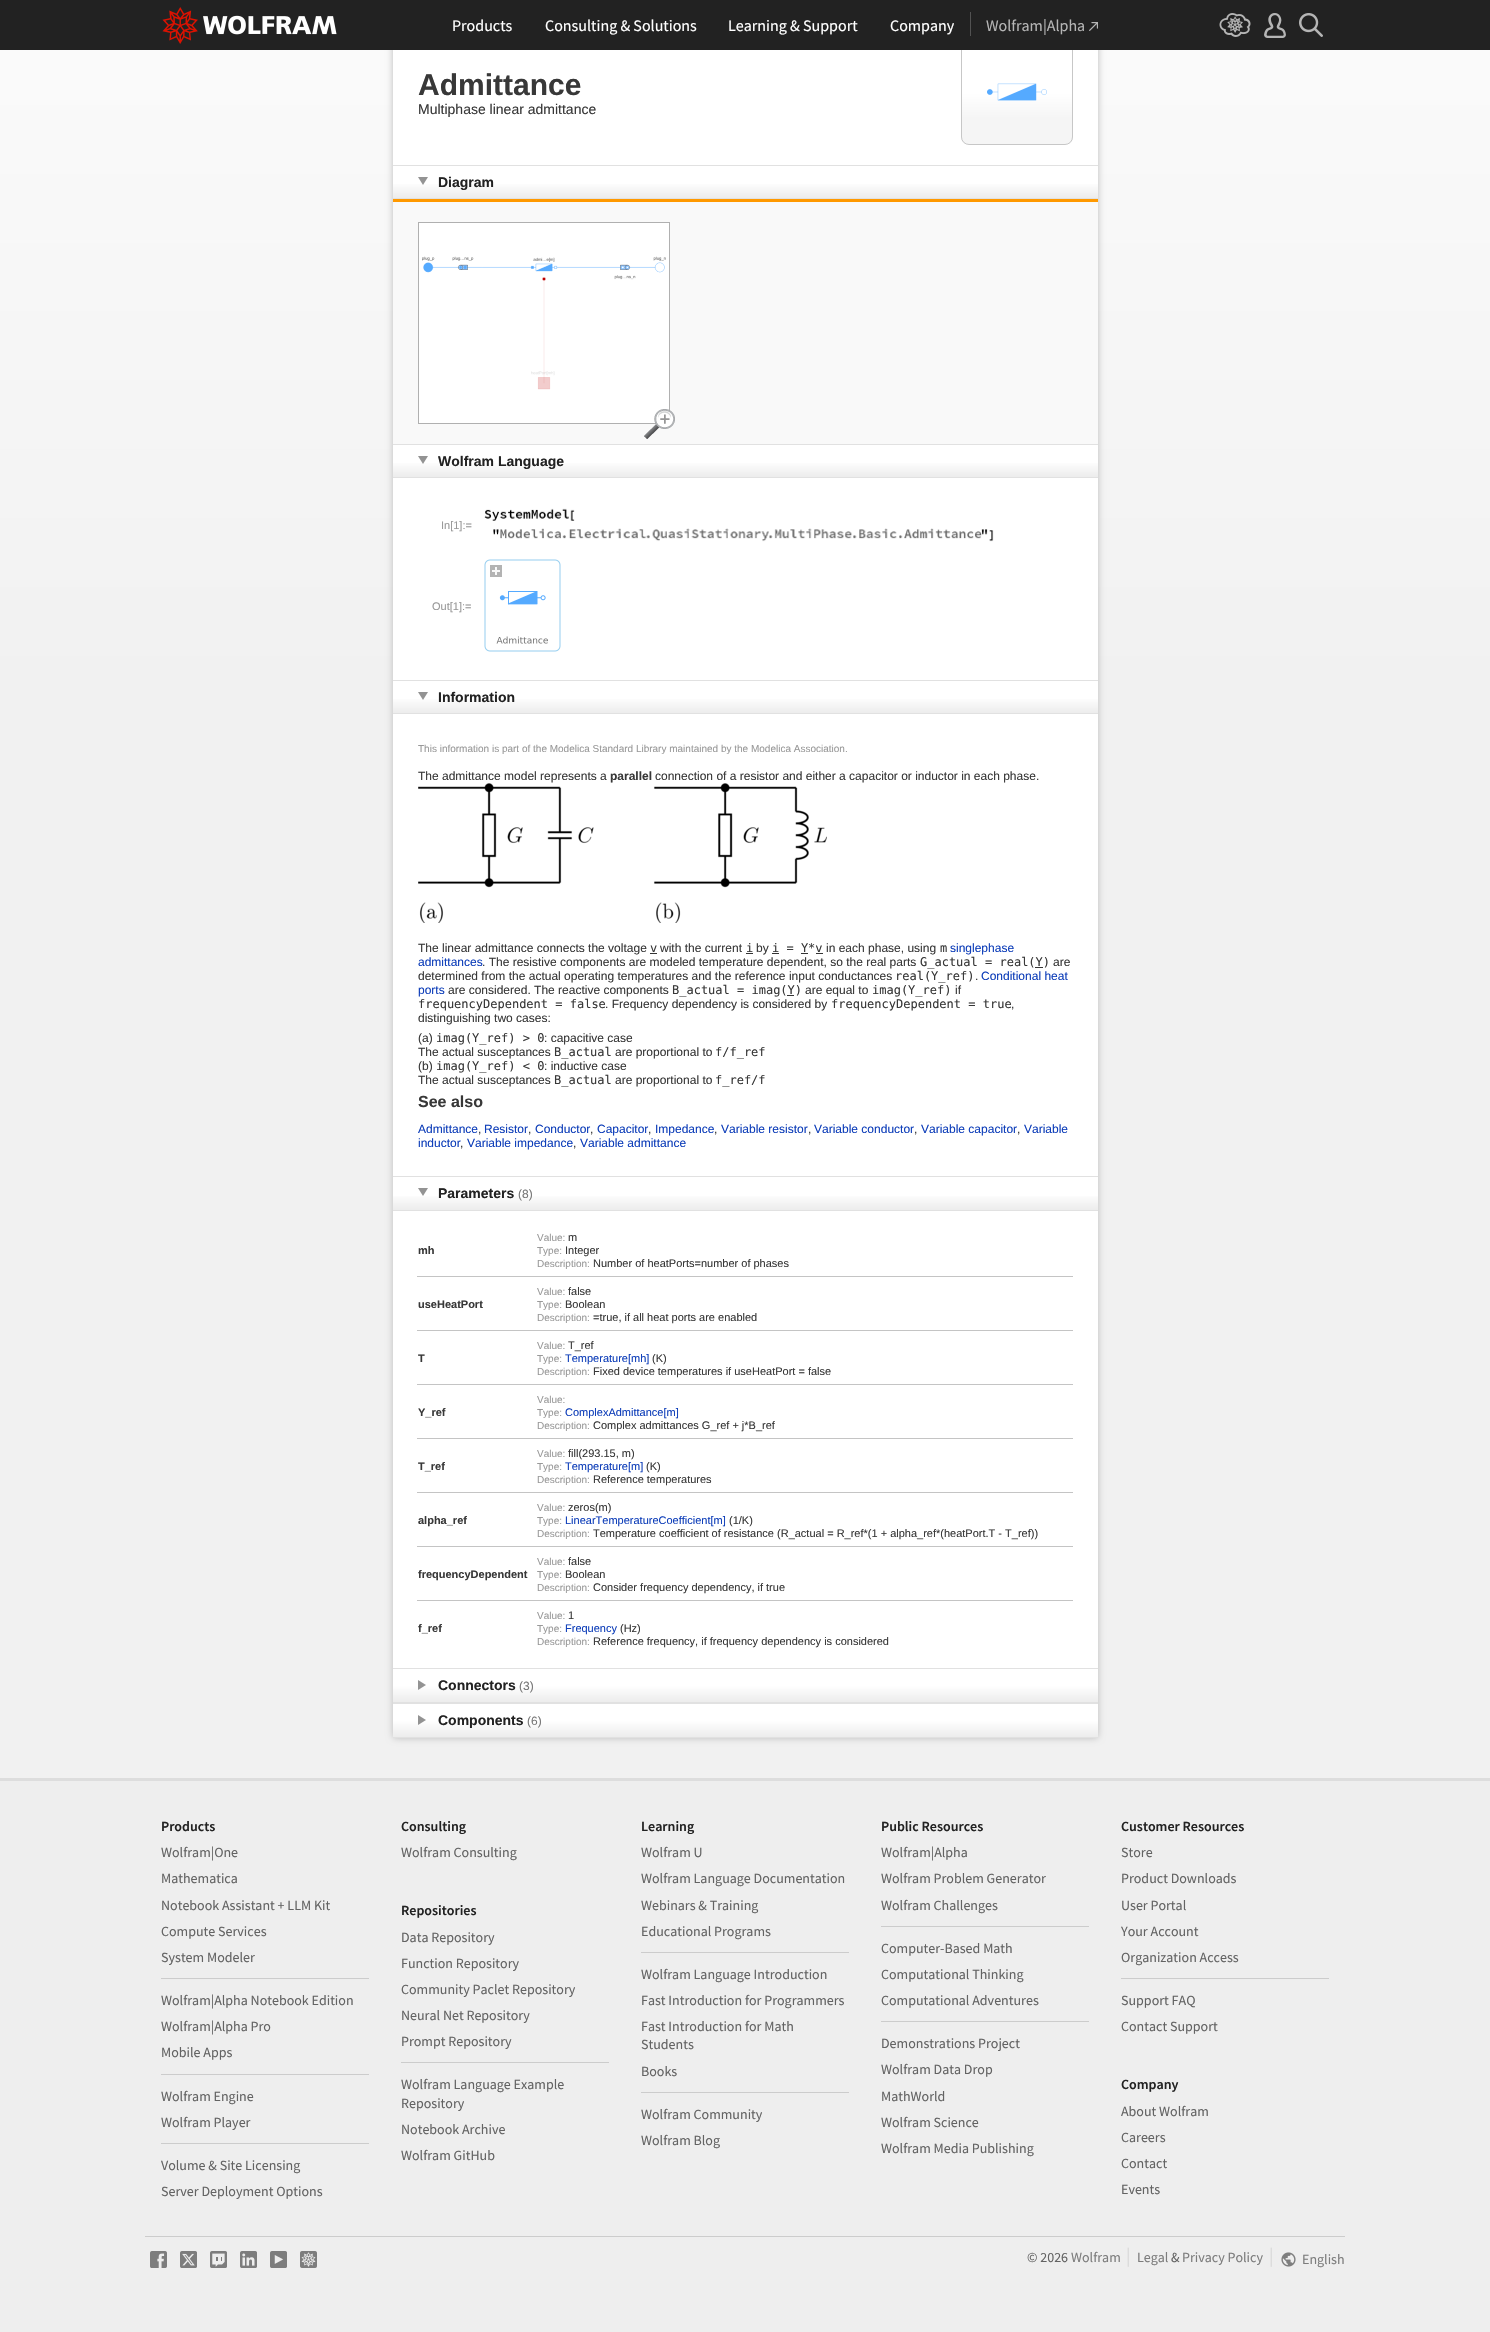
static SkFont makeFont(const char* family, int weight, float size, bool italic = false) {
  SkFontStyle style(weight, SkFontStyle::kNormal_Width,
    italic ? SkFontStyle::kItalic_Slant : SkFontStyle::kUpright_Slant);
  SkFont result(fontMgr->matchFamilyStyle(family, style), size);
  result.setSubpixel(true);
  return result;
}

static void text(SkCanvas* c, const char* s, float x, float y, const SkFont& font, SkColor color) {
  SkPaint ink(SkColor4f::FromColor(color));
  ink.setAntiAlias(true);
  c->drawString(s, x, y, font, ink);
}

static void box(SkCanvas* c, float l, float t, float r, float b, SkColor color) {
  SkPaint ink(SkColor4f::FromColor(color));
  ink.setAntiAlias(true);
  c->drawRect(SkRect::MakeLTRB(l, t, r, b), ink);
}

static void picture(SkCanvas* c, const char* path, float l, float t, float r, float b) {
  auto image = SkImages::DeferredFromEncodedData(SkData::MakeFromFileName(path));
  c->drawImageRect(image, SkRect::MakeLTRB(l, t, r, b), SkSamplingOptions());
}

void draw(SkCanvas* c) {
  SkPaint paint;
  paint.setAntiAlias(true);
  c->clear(0xffffffff);
  {
    const SkColor colors[] = {0xffffffff, 0xfff1f1f1};
    const float stops[] = {0, 0.37f};
    const SkPoint ends[] = {{745, -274}, {745, 2332}};
    paint.setShader(SkGradientShader::MakeLinear(ends, colors, stops, 2, SkTileMode::kClamp));
    paint.setAlpha(255);
  }
  c->drawRect(SkRect::MakeLTRB(0, 50, 1490, 1778), paint);
  paint.setShader(nullptr);
  paint.setColor(0xffbbbbbb);
  paint.setMaskFilter(SkMaskFilter::MakeBlur(kNormal_SkBlurStyle, 3.5f));
  c->drawRoundRect(SkRect::MakeLTRB(393, -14, 1098, 1738), 3, 3, paint);
  paint.setMaskFilter(nullptr);
  box(c, 393, 50, 1098, 1668, 0xffffffff);
  c->save();
  c->clipPath(SkPathBuilder().moveTo(969, 41).lineTo(1065, 41).cubicTo(1069.5f, 41, 1073, 44.5f, 1073, 49).lineTo(1073, 137).cubicTo(1073, 141.5f, 1069.5f, 145, 1065, 145).lineTo(969, 145).cubicTo(964.5f, 145, 961, 141.5f, 961, 137).lineTo(961, 49).cubicTo(961, 44.5f, 964.5f, 41, 969, 41).close().detach(), true);
  {
    const SkColor colors[] = {0xffffffff, 0xfff5f5f5};
    const float stops[] = {0.5f, 0.75f};
    const SkPoint ends[] = {{1017, 42}, {1017, 144}};
    paint.setShader(SkGradientShader::MakeLinear(ends, colors, stops, 2, SkTileMode::kClamp));
    paint.setAlpha(255);
  }
  c->drawRect(SkRect::MakeLTRB(961, 50, 1073, 144), paint);
  c->restore();
  paint.setStyle(SkPaint::kStroke_Style);
  paint.setStrokeWidth(1);
  paint.setShader(nullptr);
  paint.setColor(0xffc7c7c7);
  c->drawRoundRect(SkRect::MakeLTRB(961.5f, 41.5f, 1072.5f, 144.5f), 7.5f, 7.5f, paint);
  box(c, 0, 0, 1490, 50, 0xff222222);
  picture(c, "img_01.png", 162, 7, 337, 44);
  SkFont face1 = makeFont("Source Sans Pro", 400, 16);
  text(c, "Products", 452, 31, face1, 0xffffffff);
  text(c, "Consulting & Solutions", 545, 31, face1, 0xffffffff);
  text(c, "Learning & Support", 728, 31, face1, 0xffffffff);
  text(c, "Company", 890, 31, face1, 0xffffffff);
  box(c, 970, 12, 971, 36, 0xff525252);
  text(c, "Wolfram|Alpha", 986, 31, face1, 0xffb5b5b5);
  picture(c, "img_02.png", 1089, 22, 1098, 31);
  picture(c, "img_03.png", 1219, 13, 1251, 37);
  picture(c, "img_04.png", 1264, 13, 1286, 38);
  picture(c, "img_05.png", 1299, 13, 1323, 37);
  SkFont face2 = makeFont("Liberation Sans", 700, 30);
  text(c, "Admittance", 418, 95, face2, 0xff383838);
  SkFont face3 = makeFont("Liberation Sans", 400, 14);
  text(c, "Multiphase linear admittance", 418, 114, face3, 0xff383838);
  picture(c, "img_06.png", 987, 83, 1047, 101);
  paint.setStyle(SkPaint::kFill_Style);
  {
    const SkColor colors[] = {0xffffffff, 0xffececec};
    const float stops[] = {0.5f, 1};
    const SkPoint ends[] = {{746, 166}, {746, 198}};
    paint.setShader(SkGradientShader::MakeLinear(ends, colors, stops, 2, SkTileMode::kClamp));
    paint.setAlpha(255);
  }
  c->drawRect(SkRect::MakeLTRB(393, 184, 1098, 198), paint);
  box(c, 393, 165, 1098, 166, 0xffe1e1e1);
  box(c, 393, 198, 1098, 199, 0xffe1e1e1);
  paint.setShader(nullptr);
  paint.setColor(0xff939393);
  c->drawPath(SkPathBuilder().moveTo(418, 177).lineTo(428, 177).lineTo(423, 185).close().detach(), paint);
  SkFont face4 = makeFont("Liberation Sans", 700, 14);
  text(c, "Diagram", 438, 187, face4, 0xff222222);
  box(c, 393, 202, 1098, 444, 0xfff9f9f9);
  box(c, 393, 199, 1098, 202, 0xffff9900);
  paint.setStyle(SkPaint::kStroke_Style);
  paint.setColor(0xffb0b0b0);
  c->drawRect(SkRect::MakeLTRB(418.5f, 222.5f, 669.5f, 423.5f), paint);
  picture(c, "img_07.png", 419, 223, 669, 423);
  picture(c, "img_08.png", 644, 409, 675, 439);
  paint.setStyle(SkPaint::kFill_Style);
  {
    const SkColor colors[] = {0xffffffff, 0xffececec};
    const float stops[] = {0.5f, 1};
    const SkPoint ends[] = {{746, 445}, {746, 477}};
    paint.setShader(SkGradientShader::MakeLinear(ends, colors, stops, 2, SkTileMode::kClamp));
    paint.setAlpha(255);
  }
  c->drawRect(SkRect::MakeLTRB(393, 463, 1098, 477), paint);
  box(c, 393, 444, 1098, 445, 0xffe1e1e1);
  box(c, 393, 477, 1098, 478, 0xffe1e1e1);
  paint.setShader(nullptr);
  paint.setColor(0xff939393);
  c->drawPath(SkPathBuilder().moveTo(418, 456).lineTo(428, 456).lineTo(423, 464).close().detach(), paint);
  text(c, "Wolfram Language", 438, 466, face4, 0xff222222);
  SkFont face5 = makeFont("Liberation Sans", 400, 11);
  text(c, "In[1]:=", 441, 529, face5, 0xff999999);
  picture(c, "img_09.png", 484, 508, 994, 542);
  text(c, "Out[1]:=", 432, 610, face5, 0xff999999);
  picture(c, "img_10.png", 484, 559, 561, 652);
  {
    const SkColor colors[] = {0xffffffff, 0xffececec};
    const float stops[] = {0.5f, 1};
    const SkPoint ends[] = {{746, 681}, {746, 713}};
    paint.setShader(SkGradientShader::MakeLinear(ends, colors, stops, 2, SkTileMode::kClamp));
    paint.setAlpha(255);
  }
  c->drawRect(SkRect::MakeLTRB(393, 699, 1098, 713), paint);
  box(c, 393, 680, 1098, 681, 0xffe1e1e1);
  box(c, 393, 713, 1098, 714, 0xffe1e1e1);
  paint.setShader(nullptr);
  paint.setColor(0xff939393);
  c->drawPath(SkPathBuilder().moveTo(418, 692).lineTo(428, 692).lineTo(423, 700).close().detach(), paint);
  text(c, "Information", 438, 702, face4, 0xff222222);
  SkFont face6 = makeFont("Liberation Sans", 400, 10);
  text(c, "This information is part of the Modelica Standard Library maintained by the Modelica Association.", 418, 752, face6, 0xff999999);
  SkFont face7 = makeFont("Liberation Sans", 400, 12);
  text(c, "The admittance model represents a", 418, 780, face7, 0xff383838);
  SkFont face8 = makeFont("Liberation Sans", 700, 12);
  text(c, "parallel", 610, 780, face8, 0xff383838);
  text(c, "connection of a resistor and either a capacitor or inductor in each phase.", 655, 780, face7, 0xff383838);
  picture(c, "img_11.png", 418, 783, 827, 923);
  text(c, "The linear admittance connects the voltage", 418, 952, face7, 0xff383838);
  SkFont face9 = makeFont("DejaVu Sans Mono", 400, 12);
  text(c, "v", 650, 952, face9, 0xff383838);
  box(c, 650, 953, 657, 954, 0xff343434);
  text(c, "with the current", 660, 952, face7, 0xff383838);
  text(c, "i", 746, 952, face9, 0xff383838);
  box(c, 746, 953, 753, 954, 0xff343434);
  text(c, "by", 756, 952, face7, 0xff383838);
  text(c, "i = Y*v", 772, 952, face9, 0xff383838);
  box(c, 772, 953, 779, 954, 0xff343434);
  box(c, 801, 953, 808, 954, 0xff343434);
  box(c, 816, 953, 823, 954, 0xff343434);
  text(c, "in each phase, using", 826, 952, face7, 0xff383838);
  text(c, "m", 940, 952, face9, 0xff383838);
  text(c, "singlephase", 950, 952, face7, 0xff0e3eb9);
  text(c, "admittances", 418, 966, face7, 0xff0e3eb9);
  text(c, ". The resistive components are modeled temperature dependent, so the real parts", 482, 966, face7, 0xff383838);
  text(c, "G_actual = real(Y)", 920, 966, face9, 0xff383838);
  box(c, 1035, 967, 1043, 968, 0xff343434);
  text(c, "are", 1053, 966, face7, 0xff383838);
  text(c, "determined from the actual operating temperatures and the reference input conductances", 418, 980, face7, 0xff383838);
  text(c, "real(Y_ref)", 895, 980, face9, 0xff383838);
  text(c, ".", 975, 980, face7, 0xff383838);
  text(c, "Conditional heat", 981, 980, face7, 0xff0e3eb9);
  text(c, "ports", 418, 994, face7, 0xff0e3eb9);
  text(c, "are considered. The reactive components", 448, 994, face7, 0xff383838);
  text(c, "B_actual = imag(Y)", 672, 994, face9, 0xff383838);
  box(c, 787, 995, 794, 996, 0xff343434);
  text(c, "are equal to", 805, 994, face7, 0xff383838);
  text(c, "imag(Y_ref)", 872, 994, face9, 0xff383838);
  text(c, "if", 955, 994, face7, 0xff383838);
  text(c, "frequencyDependent = false", 418, 1008, face9, 0xff383838);
  text(c, ". Frequency dependency is considered by", 605, 1008, face7, 0xff383838);
  text(c, "frequencyDependent = true", 831, 1008, face9, 0xff383838);
  text(c, ",", 1011, 1008, face7, 0xff383838);
  text(c, "distinguishing two cases:", 418, 1022, face7, 0xff383838);
  text(c, "(a)", 418, 1042, face7, 0xff383838);
  text(c, "imag(Y_ref) > 0", 436, 1042, face9, 0xff383838);
  text(c, ": capacitive case", 544, 1042, face7, 0xff383838);
  text(c, "The actual susceptances", 418, 1056, face7, 0xff383838);
  text(c, "B_actual", 554, 1056, face9, 0xff383838);
  text(c, "are proportional to", 615, 1056, face7, 0xff383838);
  text(c, "f/f_ref", 715, 1056, face9, 0xff383838);
  text(c, "(b)", 418, 1070, face7, 0xff383838);
  text(c, "imag(Y_ref) < 0", 436, 1070, face9, 0xff383838);
  text(c, ": inductive case", 544, 1070, face7, 0xff383838);
  text(c, "The actual susceptances", 418, 1084, face7, 0xff383838);
  text(c, "B_actual", 554, 1084, face9, 0xff383838);
  text(c, "are proportional to", 615, 1084, face7, 0xff383838);
  text(c, "f_ref/f", 715, 1084, face9, 0xff383838);
  SkFont face10 = makeFont("Liberation Sans", 700, 16);
  text(c, "See also", 418, 1107, face10, 0xff383838);
  text(c, "Admittance", 418, 1133, face7, 0xff0e3eb9);
  text(c, ",", 478, 1133, face7, 0xff383838);
  text(c, "Resistor", 484, 1133, face7, 0xff0e3eb9);
  text(c, ",", 528, 1133, face7, 0xff383838);
  text(c, "Conductor", 535, 1133, face7, 0xff0e3eb9);
  text(c, ",", 590, 1133, face7, 0xff383838);
  text(c, "Capacitor", 597, 1133, face7, 0xff0e3eb9);
  text(c, ",", 648, 1133, face7, 0xff383838);
  text(c, "Impedance", 655, 1133, face7, 0xff0e3eb9);
  text(c, ",", 714, 1133, face7, 0xff383838);
  text(c, "Variable resistor", 721, 1133, face7, 0xff0e3eb9);
  text(c, ",", 808, 1133, face7, 0xff383838);
  text(c, "Variable conductor", 814, 1133, face7, 0xff0e3eb9);
  text(c, ",", 914, 1133, face7, 0xff383838);
  text(c, "Variable capacitor", 921, 1133, face7, 0xff0e3eb9);
  text(c, ",", 1017, 1133, face7, 0xff383838);
  text(c, "Variable", 1024, 1133, face7, 0xff0e3eb9);
  text(c, "inductor", 418, 1147, face7, 0xff0e3eb9);
  text(c, ",", 460, 1147, face7, 0xff383838);
  text(c, "Variable impedance", 467, 1147, face7, 0xff0e3eb9);
  text(c, ",", 573, 1147, face7, 0xff383838);
  text(c, "Variable admittance", 580, 1147, face7, 0xff0e3eb9);
  {
    const SkColor colors[] = {0xffffffff, 0xffececec};
    const float stops[] = {0.5f, 1};
    const SkPoint ends[] = {{746, 1177}, {746, 1210}};
    paint.setShader(SkGradientShader::MakeLinear(ends, colors, stops, 2, SkTileMode::kClamp));
    paint.setAlpha(255);
  }
  c->drawRect(SkRect::MakeLTRB(393, 1196, 1098, 1210), paint);
  box(c, 393, 1176, 1098, 1177, 0xffe1e1e1);
  box(c, 393, 1210, 1098, 1211, 0xffe1e1e1);
  paint.setShader(nullptr);
  paint.setColor(0xff939393);
  c->drawPath(SkPathBuilder().moveTo(418, 1188).lineTo(428, 1188).lineTo(423, 1196).close().detach(), paint);
  text(c, "Parameters", 438, 1198, face4, 0xff222222);
  text(c, "(8)", 518, 1198, face7, 0xff777777);
  SkFont face11 = makeFont("Liberation Sans", 700, 11);
  text(c, "mh", 418, 1254, face11, 0xff383838);
  box(c, 417, 1276, 1073, 1277, 0xffc4c4c4);
  text(c, "Value:", 537, 1241, face6, 0xff999999);
  text(c, "m", 568, 1241, face5, 0xff383838);
  text(c, "Type:", 537, 1254, face6, 0xff999999);
  text(c, "Integer", 565, 1254, face5, 0xff383838);
  text(c, "Description:", 537, 1267, face6, 0xff999999);
  text(c, "Number of heatPorts=number of phases", 593, 1267, face5, 0xff383838);
  text(c, "useHeatPort", 418, 1308, face11, 0xff383838);
  box(c, 417, 1330, 1073, 1331, 0xffc4c4c4);
  text(c, "Value:", 537, 1295, face6, 0xff999999);
  text(c, "false", 568, 1295, face5, 0xff383838);
  text(c, "Type:", 537, 1308, face6, 0xff999999);
  text(c, "Boolean", 565, 1308, face5, 0xff383838);
  text(c, "Description:", 537, 1321, face6, 0xff999999);
  text(c, "=true, if all heat ports are enabled", 593, 1321, face5, 0xff383838);
  text(c, "T", 418, 1362, face11, 0xff383838);
  box(c, 417, 1384, 1073, 1385, 0xffc4c4c4);
  text(c, "Value:", 537, 1349, face6, 0xff999999);
  text(c, "T_ref", 568, 1349, face5, 0xff383838);
  text(c, "Type:", 537, 1362, face6, 0xff999999);
  text(c, "Temperature[mh]", 565, 1362, face5, 0xff0e3eb9);
  text(c, "(K)", 652, 1362, face5, 0xff383838);
  text(c, "Description:", 537, 1375, face6, 0xff999999);
  text(c, "Fixed device temperatures if useHeatPort = false", 593, 1375, face5, 0xff383838);
  text(c, "Y_ref", 418, 1416, face11, 0xff383838);
  box(c, 417, 1438, 1073, 1439, 0xffc4c4c4);
  text(c, "Value:", 537, 1403, face6, 0xff999999);
  text(c, "Type:", 537, 1416, face6, 0xff999999);
  text(c, "ComplexAdmittance[m]", 565, 1416, face5, 0xff0e3eb9);
  text(c, "Description:", 537, 1429, face6, 0xff999999);
  text(c, "Complex admittances G_ref + j*B_ref", 593, 1429, face5, 0xff383838);
  text(c, "T_ref", 418, 1470, face11, 0xff383838);
  box(c, 417, 1492, 1073, 1493, 0xffc4c4c4);
  text(c, "Value:", 537, 1457, face6, 0xff999999);
  text(c, "fill(293.15, m)", 568, 1457, face5, 0xff383838);
  text(c, "Type:", 537, 1470, face6, 0xff999999);
  text(c, "Temperature[m]", 565, 1470, face5, 0xff0e3eb9);
  text(c, "(K)", 646, 1470, face5, 0xff383838);
  text(c, "Description:", 537, 1483, face6, 0xff999999);
  text(c, "Reference temperatures", 593, 1483, face5, 0xff383838);
  text(c, "alpha_ref", 418, 1524, face11, 0xff383838);
  box(c, 417, 1546, 1073, 1547, 0xffc4c4c4);
  text(c, "Value:", 537, 1511, face6, 0xff999999);
  text(c, "zeros(m)", 568, 1511, face5, 0xff383838);
  text(c, "Type:", 537, 1524, face6, 0xff999999);
  text(c, "LinearTemperatureCoefficient[m]", 565, 1524, face5, 0xff0e3eb9);
  text(c, "(1/K)", 729, 1524, face5, 0xff383838);
  text(c, "Description:", 537, 1537, face6, 0xff999999);
  text(c, "Temperature coefficient of resistance (R_actual = R_ref*(1 + alpha_ref*(heatPort.T - T_ref))", 593, 1537, face5, 0xff383838);
  text(c, "frequencyDependent", 418, 1578, face11, 0xff383838);
  box(c, 417, 1600, 1073, 1601, 0xffc4c4c4);
  text(c, "Value:", 537, 1565, face6, 0xff999999);
  text(c, "false", 568, 1565, face5, 0xff383838);
  text(c, "Type:", 537, 1578, face6, 0xff999999);
  text(c, "Boolean", 565, 1578, face5, 0xff383838);
  text(c, "Description:", 537, 1591, face6, 0xff999999);
  text(c, "Consider frequency dependency, if true", 593, 1591, face5, 0xff383838);
  text(c, "f_ref", 418, 1632, face11, 0xff383838);
  text(c, "Value:", 537, 1619, face6, 0xff999999);
  text(c, "1", 568, 1619, face5, 0xff383838);
  text(c, "Type:", 537, 1632, face6, 0xff999999);
  text(c, "Frequency", 565, 1632, face5, 0xff0e3eb9);
  text(c, "(Hz)", 620, 1632, face5, 0xff383838);
  text(c, "Description:", 537, 1645, face6, 0xff999999);
  text(c, "Reference frequency, if frequency dependency is considered", 593, 1645, face5, 0xff383838);
  {
    const SkColor colors[] = {0xffffffff, 0xffececec};
    const float stops[] = {0.5f, 1};
    const SkPoint ends[] = {{746, 1669}, {746, 1702}};
    paint.setShader(SkGradientShader::MakeLinear(ends, colors, stops, 2, SkTileMode::kClamp));
    paint.setAlpha(255);
  }
  c->drawRect(SkRect::MakeLTRB(393, 1669, 1098, 1702), paint);
  box(c, 393, 1668, 1098, 1669, 0xffe1e1e1);
  box(c, 393, 1702, 1098, 1704, 0xffe1e1e1);
  paint.setShader(nullptr);
  paint.setColor(0xff939393);
  c->drawPath(SkPathBuilder().moveTo(418, 1690).lineTo(418, 1680).lineTo(426, 1685).close().detach(), paint);
  text(c, "Connectors", 438, 1690, face4, 0xff222222);
  text(c, "(3)", 519, 1690, face7, 0xff777777);
  {
    const SkColor colors[] = {0xffffffff, 0xffececec};
    const float stops[] = {0.5f, 1};
    const SkPoint ends[] = {{746, 1704}, {746, 1737}};
    paint.setShader(SkGradientShader::MakeLinear(ends, colors, stops, 2, SkTileMode::kClamp));
    paint.setAlpha(255);
  }
  c->drawRect(SkRect::MakeLTRB(393, 1704, 1098, 1737), paint);
  box(c, 393, 1737, 1098, 1738, 0xffe1e1e1);
  paint.setShader(nullptr);
  paint.setColor(0xff939393);
  c->drawPath(SkPathBuilder().moveTo(418, 1725).lineTo(418, 1715).lineTo(426, 1720).close().detach(), paint);
  text(c, "Components", 438, 1725, face4, 0xff222222);
  text(c, "(6)", 527, 1725, face7, 0xff777777);
  box(c, 0, 1781, 1490, 2332, 0xffeeeeee);
  box(c, 0, 1778, 1490, 1781, 0xffdddddd);
  SkFont face12 = makeFont("Source Sans Pro", 600, 14);
  text(c, "Products", 161, 1831, face12, 0xff222222);
  SkFont face13 = makeFont("Source Sans Pro", 400, 14);
  text(c, "Wolfram|One", 161, 1857, face13, 0xff636363);
  text(c, "Mathematica", 161, 1883, face13, 0xff636363);
  text(c, "Notebook Assistant + LLM Kit", 161, 1910, face13, 0xff636363);
  text(c, "Compute Services", 161, 1936, face13, 0xff636363);
  text(c, "System Modeler", 161, 1962, face13, 0xff636363);
  box(c, 161, 1978, 369, 1979, 0xffcccccc);
  text(c, "Wolfram|Alpha Notebook Edition", 161, 2005, face13, 0xff636363);
  text(c, "Wolfram|Alpha Pro", 161, 2031, face13, 0xff636363);
  text(c, "Mobile Apps", 161, 2057, face13, 0xff636363);
  box(c, 161, 2074, 369, 2075, 0xffcccccc);
  text(c, "Wolfram Engine", 161, 2101, face13, 0xff636363);
  text(c, "Wolfram Player", 161, 2127, face13, 0xff636363);
  box(c, 161, 2143, 369, 2144, 0xffcccccc);
  text(c, "Volume & Site Licensing", 161, 2170, face13, 0xff636363);
  text(c, "Server Deployment Options", 161, 2196, face13, 0xff636363);
  text(c, "Consulting", 401, 1831, face12, 0xff222222);
  text(c, "Wolfram Consulting", 401, 1857, face13, 0xff636363);
  text(c, "Repositories", 401, 1915, face12, 0xff222222);
  text(c, "Data Repository", 401, 1942, face13, 0xff636363);
  text(c, "Function Repository", 401, 1968, face13, 0xff636363);
  text(c, "Community Paclet Repository", 401, 1994, face13, 0xff636363);
  text(c, "Neural Net Repository", 401, 2020, face13, 0xff636363);
  text(c, "Prompt Repository", 401, 2046, face13, 0xff636363);
  box(c, 401, 2062, 609, 2063, 0xffcccccc);
  text(c, "Wolfram Language Example", 401, 2089, face13, 0xff636363);
  text(c, "Repository", 401, 2108, face13, 0xff636363);
  text(c, "Notebook Archive", 401, 2134, face13, 0xff636363);
  text(c, "Wolfram GitHub", 401, 2160, face13, 0xff636363);
  text(c, "Learning", 641, 1831, face12, 0xff222222);
  text(c, "Wolfram U", 641, 1857, face13, 0xff636363);
  text(c, "Wolfram Language Documentation", 641, 1883, face13, 0xff636363);
  text(c, "Webinars & Training", 641, 1910, face13, 0xff636363);
  text(c, "Educational Programs", 641, 1936, face13, 0xff636363);
  box(c, 641, 1952, 849, 1953, 0xffcccccc);
  text(c, "Wolfram Language Introduction", 641, 1979, face13, 0xff636363);
  text(c, "Fast Introduction for Programmers", 641, 2005, face13, 0xff636363);
  text(c, "Fast Introduction for Math", 641, 2031, face13, 0xff636363);
  text(c, "Students", 641, 2049, face13, 0xff636363);
  text(c, "Books", 641, 2076, face13, 0xff636363);
  box(c, 641, 2092, 849, 2093, 0xffcccccc);
  text(c, "Wolfram Community", 641, 2119, face13, 0xff636363);
  text(c, "Wolfram Blog", 641, 2145, face13, 0xff636363);
  text(c, "Public Resources", 881, 1831, face12, 0xff222222);
  text(c, "Wolfram|Alpha", 881, 1857, face13, 0xff636363);
  text(c, "Wolfram Problem Generator", 881, 1883, face13, 0xff636363);
  text(c, "Wolfram Challenges", 881, 1910, face13, 0xff636363);
  box(c, 881, 1926, 1089, 1927, 0xffcccccc);
  text(c, "Computer-Based Math", 881, 1953, face13, 0xff636363);
  text(c, "Computational Thinking", 881, 1979, face13, 0xff636363);
  text(c, "Computational Adventures", 881, 2005, face13, 0xff636363);
  box(c, 881, 2021, 1089, 2022, 0xffcccccc);
  text(c, "Demonstrations Project", 881, 2048, face13, 0xff636363);
  text(c, "Wolfram Data Drop", 881, 2074, face13, 0xff636363);
  text(c, "MathWorld", 881, 2101, face13, 0xff636363);
  text(c, "Wolfram Science", 881, 2127, face13, 0xff636363);
  text(c, "Wolfram Media Publishing", 881, 2153, face13, 0xff636363);
  text(c, "Customer Resources", 1121, 1831, face12, 0xff222222);
  text(c, "Store", 1121, 1857, face13, 0xff636363);
  text(c, "Product Downloads", 1121, 1883, face13, 0xff636363);
  text(c, "User Portal", 1121, 1910, face13, 0xff636363);
  text(c, "Your Account", 1121, 1936, face13, 0xff636363);
  text(c, "Organization Access", 1121, 1962, face13, 0xff636363);
  box(c, 1121, 1978, 1329, 1979, 0xffcccccc);
  text(c, "Support FAQ", 1121, 2005, face13, 0xff636363);
  text(c, "Contact Support", 1121, 2031, face13, 0xff636363);
  text(c, "Company", 1121, 2089, face12, 0xff222222);
  text(c, "About Wolfram", 1121, 2116, face13, 0xff636363);
  text(c, "Careers", 1121, 2142, face13, 0xff636363);
  text(c, "Contact", 1121, 2168, face13, 0xff636363);
  text(c, "Events", 1121, 2194, face13, 0xff636363);
  box(c, 145, 2236, 1345, 2237, 0xffcccccc);
  picture(c, "img_12.png", 150, 2251, 167, 2268);
  picture(c, "img_13.png", 180, 2251, 197, 2268);
  picture(c, "img_14.png", 210, 2251, 227, 2268);
  picture(c, "img_15.png", 240, 2251, 257, 2268);
  picture(c, "img_16.png", 270, 2251, 287, 2268);
  picture(c, "img_17.png", 300, 2251, 317, 2268);
  text(c, "© 2026", 1027, 2262, face13, 0xff636363);
  text(c, "Wolfram", 1071, 2262, face13, 0xff7d7d7d);
  SkFont face14 = makeFont("Source Sans Pro", 400, 19);
  text(c, "|", 1126, 2262, face14, 0xffdadada);
  text(c, "Legal", 1137, 2262, face13, 0xff7d7d7d);
  text(c, "&", 1171, 2262, face13, 0xff636363);
  text(c, "Privacy Policy", 1182, 2262, face13, 0xff7d7d7d);
  text(c, "|", 1269, 2262, face14, 0xffdadada);
  picture(c, "img_18.png", 1281, 2252, 1296, 2267);
  text(c, "English", 1302, 2264, face13, 0xff7d7d7d);
}
